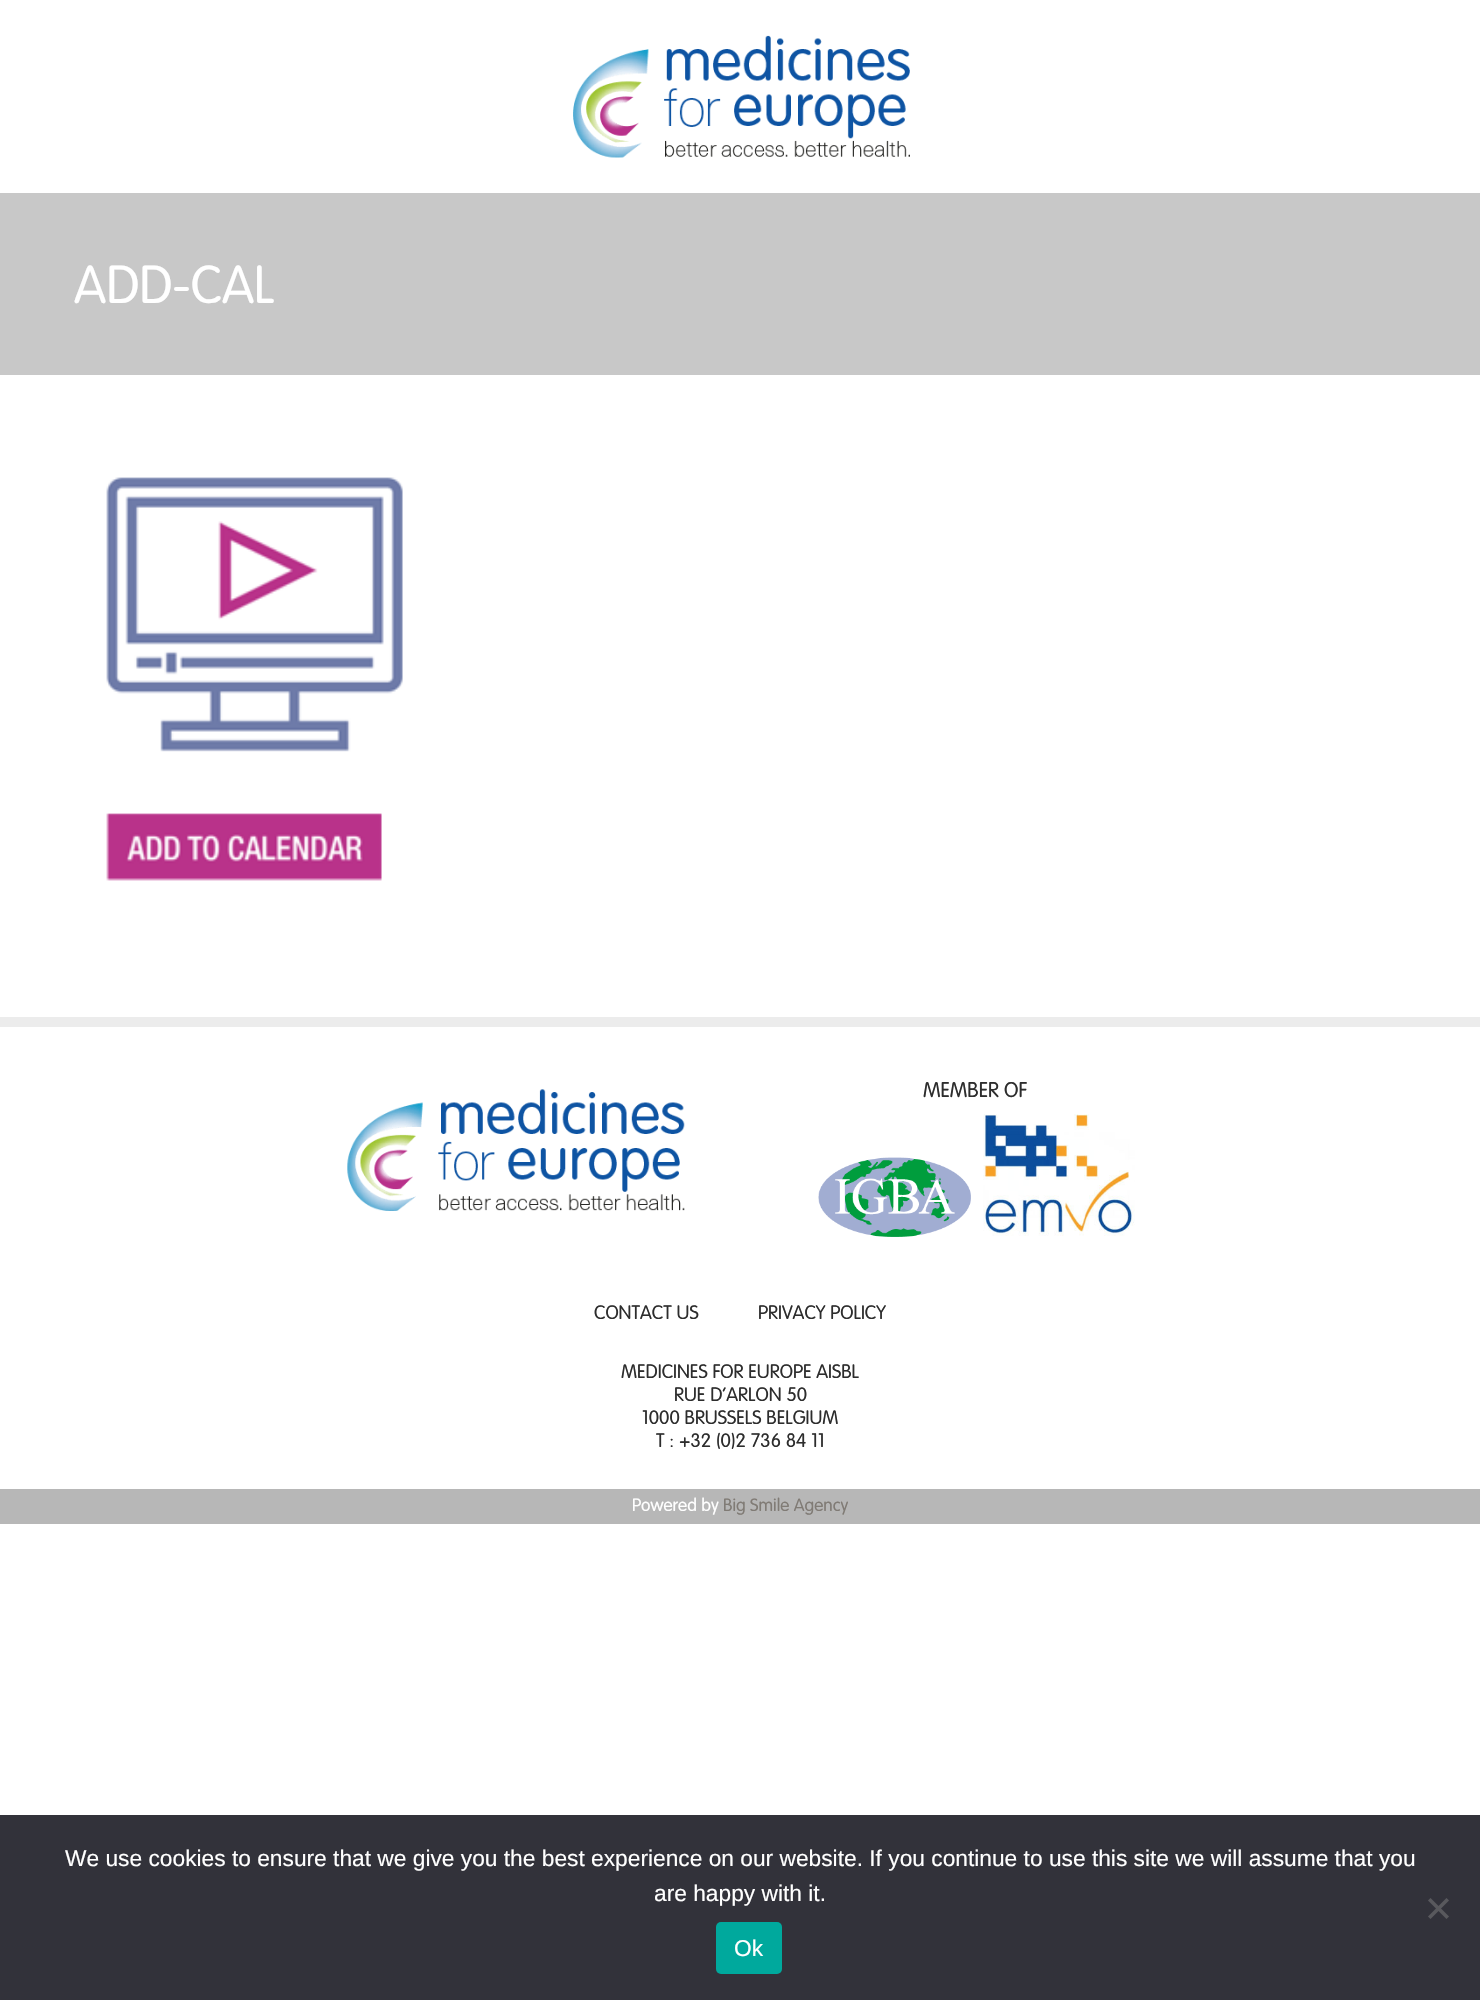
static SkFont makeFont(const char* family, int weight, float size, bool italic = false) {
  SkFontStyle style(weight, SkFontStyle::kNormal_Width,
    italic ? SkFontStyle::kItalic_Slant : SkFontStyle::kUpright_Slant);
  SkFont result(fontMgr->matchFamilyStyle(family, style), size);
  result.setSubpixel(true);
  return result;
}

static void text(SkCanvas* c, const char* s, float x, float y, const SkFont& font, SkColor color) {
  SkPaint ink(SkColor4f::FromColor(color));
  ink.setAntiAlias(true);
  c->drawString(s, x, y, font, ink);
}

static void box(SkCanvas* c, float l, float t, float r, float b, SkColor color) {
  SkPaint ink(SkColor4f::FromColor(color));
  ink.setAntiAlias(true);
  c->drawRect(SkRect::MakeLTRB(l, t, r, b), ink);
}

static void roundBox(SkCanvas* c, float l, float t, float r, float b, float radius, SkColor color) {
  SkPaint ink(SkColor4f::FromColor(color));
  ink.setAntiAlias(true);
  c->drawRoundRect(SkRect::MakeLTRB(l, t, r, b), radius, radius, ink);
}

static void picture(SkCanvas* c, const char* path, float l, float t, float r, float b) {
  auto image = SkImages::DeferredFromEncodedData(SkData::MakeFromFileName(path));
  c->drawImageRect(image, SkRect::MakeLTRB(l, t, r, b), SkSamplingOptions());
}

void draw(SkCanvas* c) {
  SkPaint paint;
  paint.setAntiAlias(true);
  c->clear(0xffffffff);
  picture(c, "img_01.png", 573, 35, 910, 158);
  box(c, 0, 193, 1480, 375, 0xffc8c8c8);
  SkFont face1 = makeFont("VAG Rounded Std", 300, 52.5f);
  text(c, "ADD-CAL", 74, 303, face1, 0xffffffff);
  picture(c, "img_02.png", 106, 477, 403, 881);
  box(c, 0, 1017, 1480, 1027, 0xffececec);
  picture(c, "img_03.png", 347, 1089, 685, 1211);
  SkFont face2 = makeFont("VAG Rounded Std", 300, 21);
  text(c, "MEMBER OF", 923, 1097, face2, 0xff2d2d2d);
  picture(c, "img_04.png", 818, 1157, 971, 1237);
  picture(c, "img_05.png", 983, 1114, 1135, 1236);
  SkFont face3 = makeFont("VAG Rounded Std", 300, 19.25f);
  text(c, "CONTACT US", 594, 1319, face3, 0xff2d2d2d);
  text(c, "PRIVACY POLICY", 758, 1319, face3, 0xff2d2d2d);
  text(c, "MEDICINES FOR EUROPE AISBL", 621, 1378, face3, 0xff2d2d2d);
  text(c, "RUE D’ARLON 50", 674, 1401, face3, 0xff2d2d2d);
  text(c, "1000 BRUSSELS BELGIUM", 642, 1424, face3, 0xff2d2d2d);
  text(c, "T : +32 (0)2 736 84 11", 656, 1447, face3, 0xff2d2d2d);
  box(c, 0, 1489, 1480, 1524, 0xffb7b7b7);
  SkFont face4 = makeFont("VAG Rounded Std", 300, 17.5f);
  text(c, "Powered by", 632, 1511, face4, 0xffffffff);
  text(c, "Big Smile Agency", 723, 1511, face4, 0xff807b75);
  box(c, 0, 1815, 1480, 2000, 0xff32323a);
  SkFont face5 = makeFont("Liberation Sans", 400, 22.75f);
  text(c, "We use cookies to ensure that we give you the best experience on our website. If you continue to use this site we will assume that you", 65, 1866, face5, 0xffffffff);
  text(c, "are happy with it.", 654, 1901, face5, 0xffffffff);
  paint.setColor(0xff59595d);
  c->drawPath(SkPathBuilder().moveTo(1446.5f, 1898).lineTo(1449, 1900.5f).lineTo(1430.5f, 1919).lineTo(1428, 1916.5f).close().detach(), paint);
  c->drawPath(SkPathBuilder().moveTo(1428, 1900.5f).lineTo(1430.5f, 1898).lineTo(1449, 1916.5f).lineTo(1446.5f, 1919).close().detach(), paint);
  roundBox(c, 716, 1922, 782, 1974, 5, 0xff00a99d);
  text(c, "Ok", 734, 1956, face5, 0xffffffff);
}
